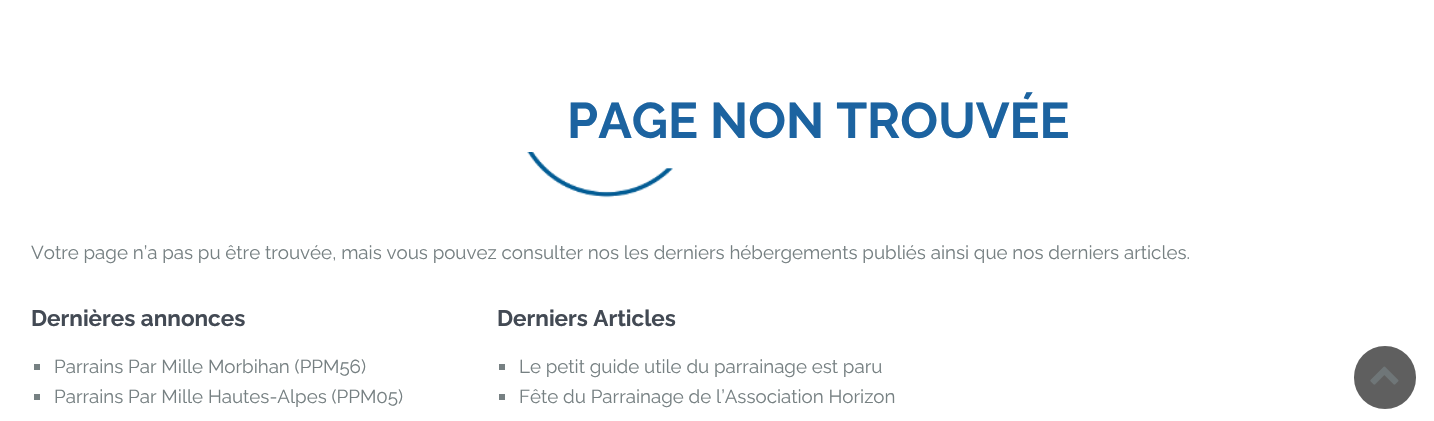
static SkFont makeFont(const char* family, int weight, float size, bool italic = false) {
  SkFontStyle style(weight, SkFontStyle::kNormal_Width,
    italic ? SkFontStyle::kItalic_Slant : SkFontStyle::kUpright_Slant);
  SkFont result(fontMgr->matchFamilyStyle(family, style), size);
  result.setSubpixel(true);
  return result;
}

static void text(SkCanvas* c, const char* s, float x, float y, const SkFont& font, SkColor color) {
  SkPaint ink(SkColor4f::FromColor(color));
  ink.setAntiAlias(true);
  c->drawString(s, x, y, font, ink);
}

static void box(SkCanvas* c, float l, float t, float r, float b, SkColor color) {
  SkPaint ink(SkColor4f::FromColor(color));
  ink.setAntiAlias(true);
  c->drawRect(SkRect::MakeLTRB(l, t, r, b), ink);
}

static void roundBox(SkCanvas* c, float l, float t, float r, float b, float radius, SkColor color) {
  SkPaint ink(SkColor4f::FromColor(color));
  ink.setAntiAlias(true);
  c->drawRoundRect(SkRect::MakeLTRB(l, t, r, b), radius, radius, ink);
}

static void picture(SkCanvas* c, const char* path, float l, float t, float r, float b) {
  auto image = SkImages::DeferredFromEncodedData(SkData::MakeFromFileName(path));
  c->drawImageRect(image, SkRect::MakeLTRB(l, t, r, b), SkSamplingOptions());
}

void draw(SkCanvas* c) {
  SkPaint paint;
  paint.setAntiAlias(true);
  c->clear(0xffffffff);
  SkFont face1 = makeFont("Raleway", 700, 50);
  text(c, "PAGE NON TROUVÉE", 567, 138, face1, 0xff1c63a0);
  picture(c, "img_01.png", 527, 152, 673, 198);
  SkFont face2 = makeFont("Raleway", 400, 18.75f);
  text(c, "Votre page n’a pas pu être trouvée, mais vous pouvez consulter nos les derniers hébergements publiés ainsi que nos derniers articles.", 31, 259, face2, 0xff768082);
  SkFont face3 = makeFont("Raleway", 700, 22.5f);
  text(c, "Dernières annonces", 31, 326, face3, 0xff434a54);
  box(c, 34, 364, 40, 370, 0xff768082);
  text(c, "Parrains Par Mille Morbihan (PPM56)", 54, 373, face2, 0xff768082);
  box(c, 34, 394, 40, 400, 0xff768082);
  text(c, "Parrains Par Mille Hautes-Alpes (PPM05)", 54, 403, face2, 0xff768082);
  text(c, "Derniers Articles", 497, 326, face3, 0xff434a54);
  box(c, 499, 364, 505, 370, 0xff768082);
  text(c, "Le petit guide utile du parrainage est paru", 519, 373, face2, 0xff768082);
  box(c, 499, 394, 505, 400, 0xff768082);
  text(c, "Fête du Parrainage de l’Association Horizon", 519, 403, face2, 0xff768082);
  roundBox(c, 1354, 346, 1416, 409, 31, 0xff5f5f5f);
  picture(c, "img_02.png", 1370, 366, 1399, 385);
}
